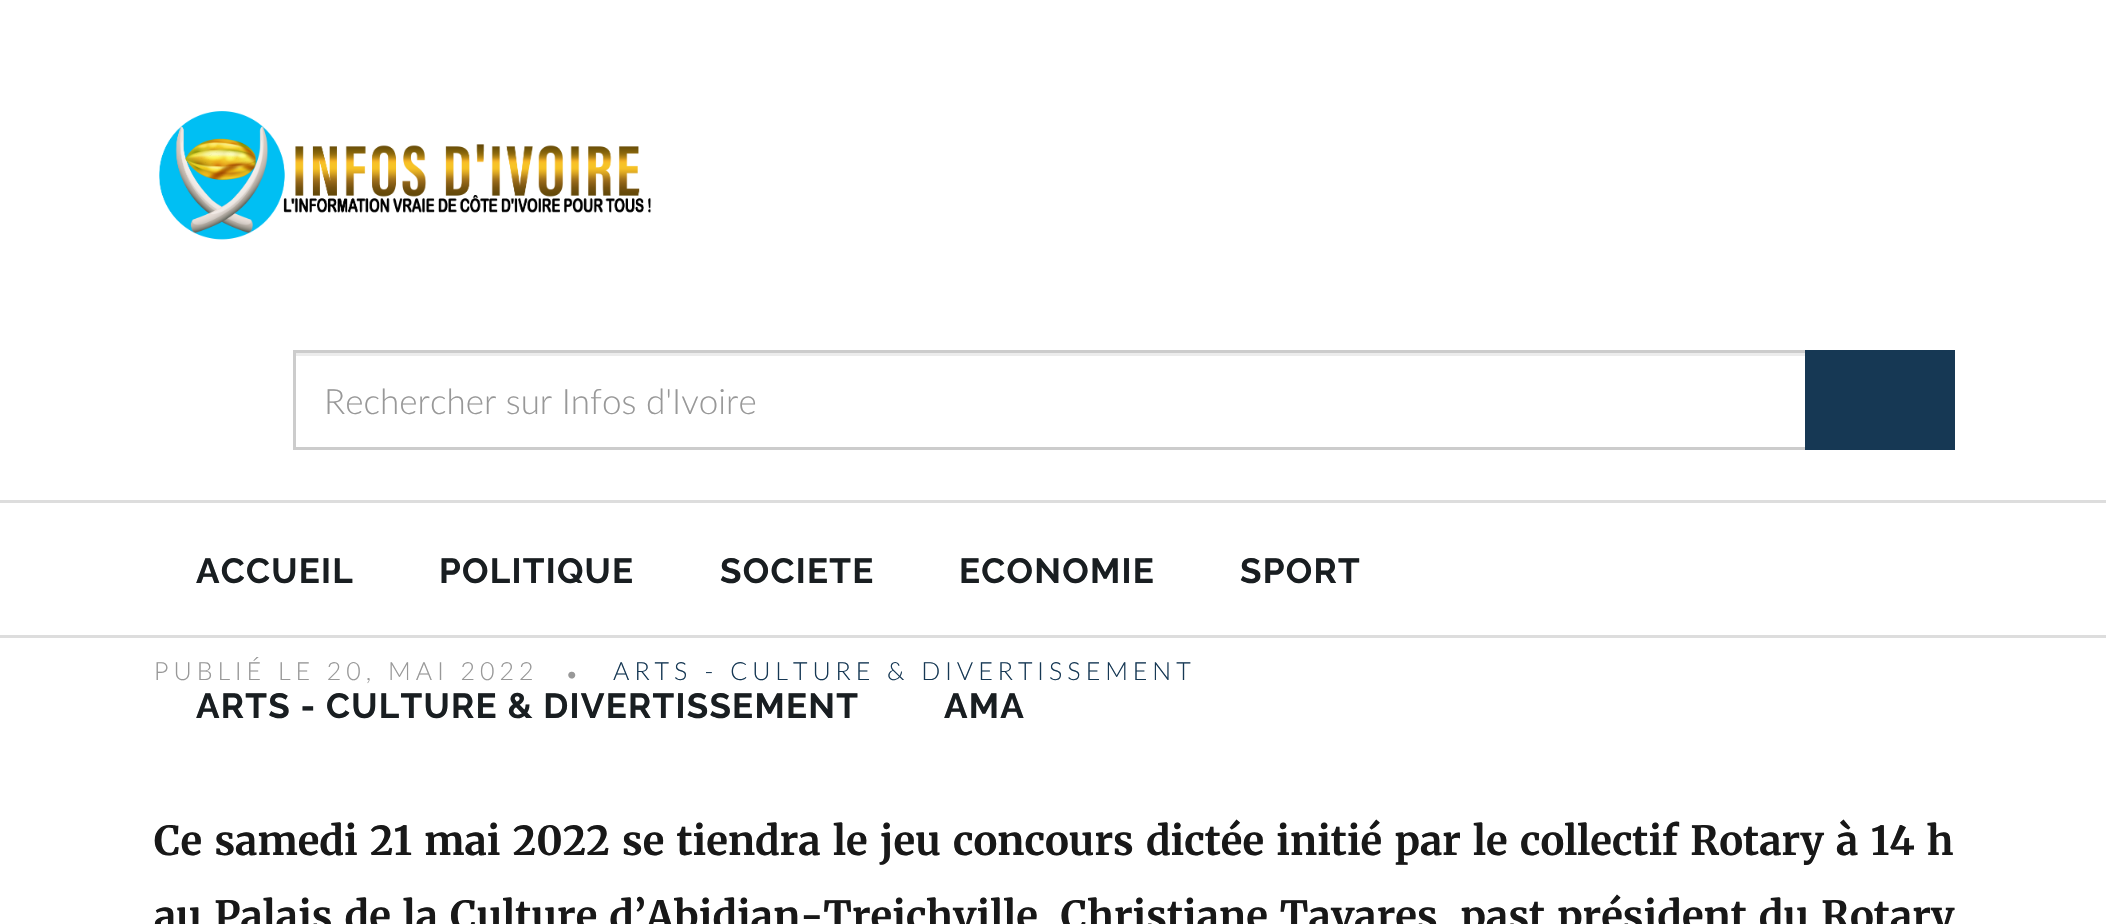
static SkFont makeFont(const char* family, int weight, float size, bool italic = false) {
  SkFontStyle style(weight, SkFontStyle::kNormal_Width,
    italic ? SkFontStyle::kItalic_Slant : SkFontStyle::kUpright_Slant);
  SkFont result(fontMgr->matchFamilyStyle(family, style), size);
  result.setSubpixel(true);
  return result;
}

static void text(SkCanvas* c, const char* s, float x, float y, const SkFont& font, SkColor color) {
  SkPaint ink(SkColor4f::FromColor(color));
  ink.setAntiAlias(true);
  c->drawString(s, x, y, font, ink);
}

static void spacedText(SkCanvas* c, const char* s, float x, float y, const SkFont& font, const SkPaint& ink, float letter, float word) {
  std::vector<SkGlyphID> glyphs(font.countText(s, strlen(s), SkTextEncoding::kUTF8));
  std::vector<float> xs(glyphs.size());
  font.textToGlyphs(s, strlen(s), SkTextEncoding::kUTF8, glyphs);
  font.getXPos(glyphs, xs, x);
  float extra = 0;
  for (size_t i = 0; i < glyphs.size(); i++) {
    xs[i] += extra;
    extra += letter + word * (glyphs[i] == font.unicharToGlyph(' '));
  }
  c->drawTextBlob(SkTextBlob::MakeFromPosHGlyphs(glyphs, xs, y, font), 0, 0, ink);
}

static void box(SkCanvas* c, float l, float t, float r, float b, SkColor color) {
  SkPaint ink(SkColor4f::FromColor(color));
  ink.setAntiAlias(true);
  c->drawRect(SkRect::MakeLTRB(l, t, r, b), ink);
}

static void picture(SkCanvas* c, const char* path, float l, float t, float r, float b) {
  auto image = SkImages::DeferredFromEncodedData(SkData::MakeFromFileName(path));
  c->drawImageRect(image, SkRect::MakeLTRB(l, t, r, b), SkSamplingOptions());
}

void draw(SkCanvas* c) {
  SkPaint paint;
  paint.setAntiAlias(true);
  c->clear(0xffffffff);
  picture(c, "img_01.png", 159, 111, 652, 240);
  box(c, 295, 353, 1805, 356, 0xffececec);
  paint.setStyle(SkPaint::kStroke_Style);
  paint.setStrokeWidth(3);
  paint.setColor(0xffcccccc);
  c->drawRect(SkRect::MakeLTRB(294.5f, 351.5f, 1806.5f, 448.5f), paint);
  SkFont face1 = makeFont("Lato", 300, 35);
  text(c, "Rechercher sur Infos d'Ivoire", 324, 414, face1, 0xff989898);
  box(c, 1805, 350, 1955, 450, 0xff163854);
  box(c, 0, 500, 2106, 503, 0xffdddddd);
  box(c, 0, 635, 2106, 638, 0xffdddddd);
  SkFont face2 = makeFont("Raleway", 700, 35);
  paint.setStyle(SkPaint::kFill_Style);
  paint.setColor(0xff191e21);
  spacedText(c, "ACCUEIL", 196, 583, face2, paint, 1.25f, 0);
  spacedText(c, "POLITIQUE", 439, 583, face2, paint, 1.25f, 0);
  spacedText(c, "SOCIETE", 720, 583, face2, paint, 1.25f, 0);
  spacedText(c, "ECONOMIE", 959, 583, face2, paint, 1.25f, 0);
  spacedText(c, "SPORT", 1240, 583, face2, paint, 1.25f, 0);
  spacedText(c, "ARTS - CULTURE & DIVERTISSEMENT", 196, 718, face2, paint, 1.25f, 0);
  spacedText(c, "AMA", 944, 718, face2, paint, 1.25f, 0);
  SkFont face3 = makeFont("Lato", 300, 25);
  paint.setColor(0xff989898);
  spacedText(c, "PUBLIÉ LE 20, MAI 2022", 154, 680, face3, paint, 5, 0);
  SkFont face4 = makeFont("Lato", 300, 75);
  spacedText(c, ".", 563, 678, face4, paint, 5, 0);
  paint.setColor(0xff163854);
  spacedText(c, "ARTS - CULTURE & DIVERTISSEMENT", 613, 680, face3, paint, 5, 0);
  SkFont face5 = makeFont("Merriweather", 700, 40);
  paint.setColor(0xff181818);
  spacedText(c, "Ce samedi 21 mai 2022 se tiendra le jeu concours dictée initié par le collectif Rotary à 14 h", 154, 855, face5, paint, 0, 2.75f);
  spacedText(c, "au Palais de la Culture d’Abidjan-Treichville. Christiane Tavares, past président du Rotary", 154, 930, face5, paint, 0, 2.5f);
}
